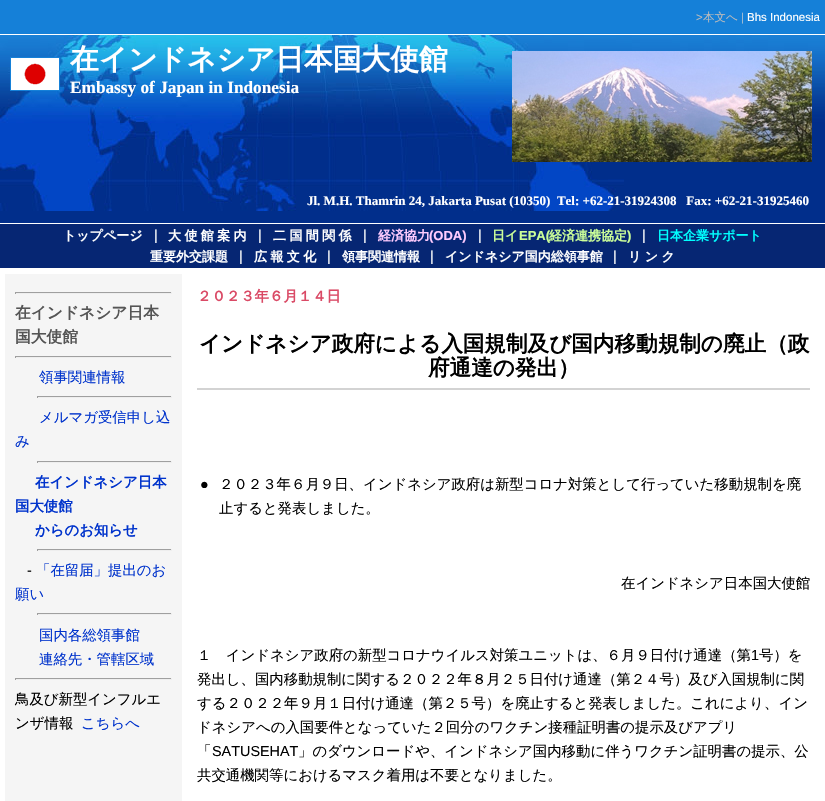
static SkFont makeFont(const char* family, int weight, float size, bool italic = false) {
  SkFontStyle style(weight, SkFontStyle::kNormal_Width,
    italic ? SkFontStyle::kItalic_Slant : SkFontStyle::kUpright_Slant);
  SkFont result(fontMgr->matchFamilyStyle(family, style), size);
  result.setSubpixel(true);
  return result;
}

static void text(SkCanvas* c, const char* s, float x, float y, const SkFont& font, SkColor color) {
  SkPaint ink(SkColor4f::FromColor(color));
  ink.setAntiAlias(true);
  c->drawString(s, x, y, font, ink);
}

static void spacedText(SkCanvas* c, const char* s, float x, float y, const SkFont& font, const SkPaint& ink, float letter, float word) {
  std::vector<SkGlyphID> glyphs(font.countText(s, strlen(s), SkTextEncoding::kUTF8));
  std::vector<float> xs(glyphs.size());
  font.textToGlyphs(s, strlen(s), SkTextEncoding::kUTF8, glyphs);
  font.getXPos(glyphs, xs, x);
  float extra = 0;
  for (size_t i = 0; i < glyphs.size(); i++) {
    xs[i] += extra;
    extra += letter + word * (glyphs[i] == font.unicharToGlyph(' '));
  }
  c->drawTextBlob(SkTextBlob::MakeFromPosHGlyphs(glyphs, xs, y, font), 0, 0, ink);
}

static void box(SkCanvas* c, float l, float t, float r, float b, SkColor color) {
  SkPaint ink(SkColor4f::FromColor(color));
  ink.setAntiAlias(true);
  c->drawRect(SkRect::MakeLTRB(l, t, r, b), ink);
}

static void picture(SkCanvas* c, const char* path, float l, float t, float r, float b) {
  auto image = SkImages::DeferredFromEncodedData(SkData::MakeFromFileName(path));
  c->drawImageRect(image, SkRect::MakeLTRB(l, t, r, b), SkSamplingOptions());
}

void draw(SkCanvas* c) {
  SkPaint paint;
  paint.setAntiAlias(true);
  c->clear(0xffffffff);
  box(c, 0, 0, 825, 34, 0xff1580d8);
  SkFont face1 = makeFont("Liberation Sans", 400, 11.5f);
  text(c, ">", 696, 21, face1, 0xffbbbbbb);
  SkFont face2 = makeFont("WenQuanYi Zen Hei", 500, 11.5f);
  text(c, "本文へ", 703, 21, face2, 0xffbbbbbb);
  text(c, "|", 741, 21, face1, 0xffa3bcd3);
  text(c, "Bhs Indonesia", 747, 21, face1, 0xffffffff);
  box(c, 0, 211, 825, 223, 0xff012e8b);
  picture(c, "img_01.png", 0, 35, 825, 211);
  picture(c, "img_02.png", 10, 57, 60, 91);
  SkFont face3 = makeFont("WenQuanYi Zen Hei", 700, 28.75f);
  text(c, "在インドネシア日本国大使館", 70, 69, face3, 0xffffffff);
  SkFont face4 = makeFont("Liberation Serif", 700, 17.25f);
  text(c, "Embassy of Japan in Indonesia", 70, 93, face4, 0xffffffff);
  picture(c, "img_03.png", 512, 51, 812, 162);
  SkFont face5 = makeFont("Liberation Serif", 700, 13);
  text(c, "Jl. M.H. Thamrin 24, Jakarta Pusat (10350)  Tel: +62-21-31924308   Fax: +62-21-31925460", 307, 205, face5, 0xffffffff);
  box(c, 0, 224, 825, 268, 0xff062673);
  SkFont face6 = makeFont("WenQuanYi Zen Hei", 700, 13);
  text(c, "トップページ", 63, 240, face6, 0xffffffff);
  SkFont face7 = makeFont("Liberation Sans", 400, 14.4f);
  text(c, "|", 154, 240, face7, 0xffffffff);
  paint.setColor(0xffffffff);
  spacedText(c, "大 使 館 案 内", 168, 240, face6, paint, 0, -0.5f);
  text(c, "|", 258, 240, face7, 0xffffffff);
  spacedText(c, "二 国 間 関 係", 273, 240, face6, paint, 0, -0.5f);
  text(c, "|", 363, 240, face7, 0xffffffff);
  text(c, "経済協力", 378, 240, face6, 0xffffccff);
  SkFont face8 = makeFont("Liberation Sans", 700, 13);
  text(c, "(ODA)", 429, 240, face8, 0xffffccff);
  text(c, "|", 478, 240, face7, 0xffffffff);
  text(c, "日イ", 492, 240, face6, 0xffccff99);
  text(c, "EPA(", 519, 240, face8, 0xffccff99);
  text(c, "経済連携協定", 549, 240, face6, 0xffccff99);
  text(c, ")", 627, 240, face8, 0xffccff99);
  text(c, "|", 642, 240, face7, 0xffffffff);
  text(c, "日本企業サポート", 657, 240, face6, 0xff00ffff);
  text(c, "重要外交課題", 150, 261, face6, 0xffffffff);
  text(c, "|", 239, 261, face7, 0xffffffff);
  spacedText(c, "広 報 文 化", 254, 261, face6, paint, 0, -0.5f);
  text(c, "|", 327, 261, face7, 0xffffffff);
  text(c, "領事関連情報", 342, 261, face6, 0xffffffff);
  text(c, "|", 430, 261, face7, 0xffffffff);
  text(c, "インドネシア国内総領事館", 445, 261, face6, 0xffffffff);
  text(c, "|", 613, 261, face7, 0xffffffff);
  spacedText(c, "リ ン ク", 628, 261, face6, paint, 0, -0.5f);
  box(c, 5, 274, 182, 801, 0xfff5f5f5);
  box(c, 15, 292, 172, 293, 0xff9f9f9f);
  box(c, 171, 292, 172, 294, 0xffeeeeee);
  box(c, 15, 293, 172, 294, 0xffeeeeee);
  box(c, 15, 292, 16, 294, 0xff9f9f9f);
  SkFont face9 = makeFont("WenQuanYi Zen Hei", 700, 15.75f);
  text(c, "在インドネシア日本", 15, 318, face9, 0xff555555);
  text(c, "国大使館", 15, 342, face9, 0xff555555);
  box(c, 15, 356, 172, 357, 0xff9f9f9f);
  box(c, 171, 356, 172, 358, 0xffeeeeee);
  box(c, 15, 357, 172, 358, 0xffeeeeee);
  box(c, 15, 356, 16, 358, 0xff9f9f9f);
  SkFont face10 = makeFont("WenQuanYi Zen Hei", 500, 14.4f);
  text(c, "領事関連情報", 39, 382, face10, 0xff0033cc);
  box(c, 37, 396, 172, 397, 0xff9f9f9f);
  box(c, 171, 396, 172, 398, 0xffeeeeee);
  box(c, 37, 397, 172, 398, 0xffeeeeee);
  box(c, 37, 396, 38, 398, 0xff9f9f9f);
  text(c, "メルマガ受信申し込", 39, 422, face10, 0xff0033cc);
  text(c, "み", 15, 446, face10, 0xff0033cc);
  box(c, 37, 461, 172, 462, 0xff9f9f9f);
  box(c, 171, 461, 172, 463, 0xffeeeeee);
  box(c, 37, 462, 172, 463, 0xffeeeeee);
  box(c, 37, 461, 38, 463, 0xff9f9f9f);
  SkFont face11 = makeFont("WenQuanYi Zen Hei", 700, 14.4f);
  text(c, "在インドネシア日本", 35, 487, face11, 0xff0033cc);
  text(c, "国大使館", 15, 511, face11, 0xff0033cc);
  text(c, "からのお知らせ", 35, 535, face11, 0xff0033cc);
  box(c, 37, 549, 172, 550, 0xff9f9f9f);
  box(c, 171, 549, 172, 551, 0xffeeeeee);
  box(c, 37, 550, 172, 551, 0xffeeeeee);
  box(c, 37, 549, 38, 551, 0xff9f9f9f);
  text(c, "-", 27, 575, face7, 0xff000000);
  text(c, "「在留届」提出のお", 36, 575, face10, 0xff0033cc);
  text(c, "願い", 15, 599, face10, 0xff0033cc);
  box(c, 37, 613, 172, 614, 0xff9f9f9f);
  box(c, 171, 613, 172, 615, 0xffeeeeee);
  box(c, 37, 614, 172, 615, 0xffeeeeee);
  box(c, 37, 613, 38, 615, 0xff9f9f9f);
  text(c, "国内各総領事館", 39, 640, face10, 0xff0033cc);
  text(c, "連絡先・管轄区域", 39, 664, face10, 0xff0033cc);
  box(c, 15, 678, 172, 679, 0xff9f9f9f);
  box(c, 171, 678, 172, 680, 0xffeeeeee);
  box(c, 15, 679, 172, 680, 0xffeeeeee);
  box(c, 15, 678, 16, 680, 0xff9f9f9f);
  text(c, "鳥及び新型インフルエ", 15, 704, face10, 0xff000000);
  text(c, "ンザ情報", 15, 728, face10, 0xff000000);
  text(c, "こちらへ", 81, 728, face10, 0xff0033cc);
  text(c, "２０２３年６月１４日", 197, 301, face11, 0xffda4a66);
  SkFont face12 = makeFont("WenQuanYi Zen Hei", 700, 21.6f);
  text(c, "インドネシア政府による入国規制及び国内移動規制の廃止（政", 199, 351, face12, 0xff000000);
  text(c, "府通達の発出）", 428, 375, face12, 0xff000000);
  box(c, 197, 388, 810, 390, 0xffd3d3d3);
  text(c, "●", 200, 489, face7, 0xff000000);
  text(c, "２０２３年６月９日、インドネシア政府は新型コロナ対策として行っていた移動規制を廃", 219, 489, face10, 0xff000000);
  text(c, "止すると発表しました。", 219, 513, face10, 0xff000000);
  text(c, "在インドネシア日本国大使館", 621, 588, face10, 0xff000000);
  text(c, "１　インドネシア政府の新型コロナウイルス対策ユニットは、６月９日付け通達（第", 197, 660, face10, 0xff000000);
  text(c, "1", 751, 660, face7, 0xff000000);
  text(c, "号）を", 759, 660, face10, 0xff000000);
  text(c, "発出し、国内移動規制に関する２０２２年８月２５日付け通達（第２４号）及び入国規制に関", 197, 684, face10, 0xff000000);
  text(c, "する２０２２年９月１日付け通達（第２５号）を廃止すると発表しました。これにより、イン", 197, 708, face10, 0xff000000);
  text(c, "ドネシアへの入国要件となっていた２回分のワクチン接種証明書の提示及びアプリ", 197, 732, face10, 0xff000000);
  text(c, "「", 197, 756, face10, 0xff000000);
  text(c, "SATUSEHAT", 212, 756, face7, 0xff000000);
  text(c, "」のダウンロードや、インドネシア国内移動に伴うワクチン証明書の提示、公", 298, 756, face10, 0xff000000);
  text(c, "共交通機関等におけるマスク着用は不要となりました。", 197, 780, face10, 0xff000000);
}
